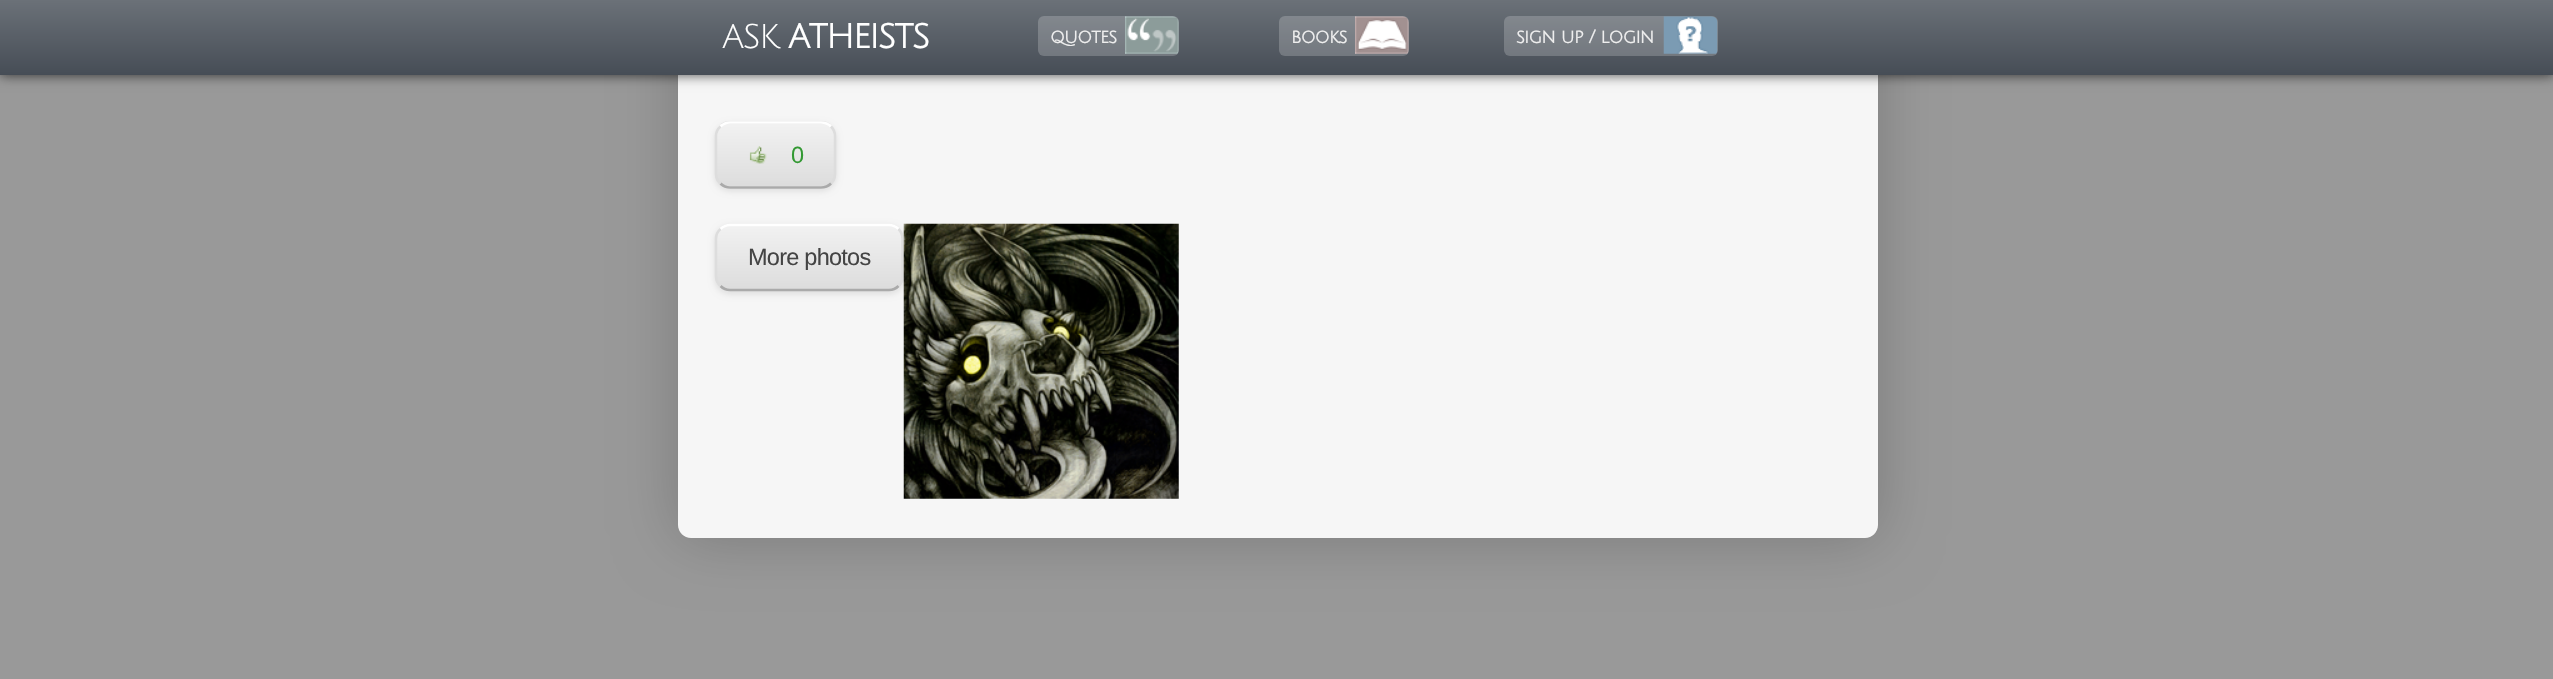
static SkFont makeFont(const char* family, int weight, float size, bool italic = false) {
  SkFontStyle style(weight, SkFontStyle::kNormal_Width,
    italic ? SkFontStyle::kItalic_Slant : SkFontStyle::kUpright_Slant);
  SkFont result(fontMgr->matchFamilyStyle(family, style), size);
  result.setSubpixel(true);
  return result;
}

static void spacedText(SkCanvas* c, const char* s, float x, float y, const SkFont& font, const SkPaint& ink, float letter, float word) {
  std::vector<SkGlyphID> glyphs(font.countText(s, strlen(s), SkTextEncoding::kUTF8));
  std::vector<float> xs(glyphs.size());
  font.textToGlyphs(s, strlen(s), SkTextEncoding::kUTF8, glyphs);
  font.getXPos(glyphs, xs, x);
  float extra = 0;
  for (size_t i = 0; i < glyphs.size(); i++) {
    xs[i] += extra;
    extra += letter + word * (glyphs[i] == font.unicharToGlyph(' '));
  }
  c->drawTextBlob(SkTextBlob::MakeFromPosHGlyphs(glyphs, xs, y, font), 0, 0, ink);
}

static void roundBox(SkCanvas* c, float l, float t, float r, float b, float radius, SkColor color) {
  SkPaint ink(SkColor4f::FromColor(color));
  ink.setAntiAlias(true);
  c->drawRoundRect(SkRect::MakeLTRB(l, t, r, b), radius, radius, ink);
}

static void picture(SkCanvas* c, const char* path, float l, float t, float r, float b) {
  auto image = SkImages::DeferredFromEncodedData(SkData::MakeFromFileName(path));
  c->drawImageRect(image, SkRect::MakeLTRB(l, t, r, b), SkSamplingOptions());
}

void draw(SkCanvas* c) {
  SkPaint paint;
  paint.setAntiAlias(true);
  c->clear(0xff999999);
  paint.setColor(0x33000000);
  paint.setMaskFilter(SkMaskFilter::MakeBlur(kNormal_SkBlurStyle, 31));
  c->drawRoundRect(SkRect::MakeLTRB(678, 0, 1878, 538), 13, 13, paint);
  paint.setMaskFilter(nullptr);
  paint.setColor(0xfff6f6f6);
  c->drawPath(SkPathBuilder().moveTo(678, 0).lineTo(1878, 0).lineTo(1878, 525).cubicTo(1878, 532, 1872, 538, 1865, 538).lineTo(691, 538).cubicTo(684, 538, 678, 532, 678, 525).close().detach(), paint);
  paint.setColor(0xb3000000);
  paint.setMaskFilter(SkMaskFilter::MakeBlur(kNormal_SkBlurStyle, 6));
  c->drawRect(SkRect::MakeLTRB(0, 0, 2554, 75), paint);
  paint.setMaskFilter(nullptr);
  {
    const SkColor colors[] = {0xff6b7178, 0xff464d56};
    const float stops[] = {0, 1};
    const SkPoint ends[] = {{0, 0}, {0, 75}};
    paint.setShader(SkGradientShader::MakeLinear(ends, colors, stops, 2, SkTileMode::kClamp));
    paint.setAlpha(255);
  }
  c->drawRect(SkRect::MakeLTRB(0, 0, 2553, 75), paint);
  SkFont face1 = makeFont("Julius Sans One", 400, 33.5f);
  paint.setShader(nullptr);
  paint.setColor(0xffffffff);
  spacedText(c, "ASK", 722, 48, face1, paint, -1.75f, 0);
  SkFont face2 = makeFont("Julius Sans One", 700, 33.5f);
  spacedText(c, "ATHEISTS", 788, 48, face2, paint, -1.75f, 0);
  roundBox(c, 1038, 16, 1179, 56, 6, 0x33ffffff);
  picture(c, "img_01.png", 1125, 16, 1179, 54);
  SkFont face3 = makeFont("Julius Sans One", 700, 18.25f);
  paint.setColor(0xffeeeeee);
  spacedText(c, "quotes", 1050, 43, face3, paint, -0.75f, 0);
  roundBox(c, 1279, 16, 1409, 56, 6, 0x33ffffff);
  picture(c, "img_02.png", 1355, 16, 1409, 54);
  spacedText(c, "books", 1291, 43, face3, paint, -0.75f, 0);
  roundBox(c, 1504, 16, 1718, 56, 6, 0x33ffffff);
  picture(c, "img_03.png", 1663, 16, 1718, 54);
  spacedText(c, "sign up / login", 1516, 43, face3, paint, -0.75f, 0);
  paint.setColor(0x1a000000);
  paint.setMaskFilter(SkMaskFilter::MakeBlur(kNormal_SkBlurStyle, 3));
  c->drawRoundRect(SkRect::MakeLTRB(715, 124, 836, 191), 15, 15, paint);
  paint.setMaskFilter(nullptr);
  roundBox(c, 715, 121, 836, 189, 15, 0xffdddddd);
  c->save();
  c->clipPath(SkPathBuilder().moveTo(730, 121).lineTo(821, 121).cubicTo(829.5f, 121, 836, 127.5f, 836, 136).lineTo(836, 174).cubicTo(836, 182.5f, 829.5f, 189, 821, 189).lineTo(730, 189).cubicTo(721.5f, 189, 715, 182.5f, 715, 174).lineTo(715, 136).cubicTo(715, 127.5f, 721.5f, 121, 730, 121).close().detach(), true);
  {
    const SkColor colors[] = {0x00ffffff, 0x99ffffff};
    const float stops[] = {0, 1};
    const SkPoint ends[] = {{776, 186}, {776, 124}};
    paint.setShader(SkGradientShader::MakeLinear(ends, colors, stops, 2, SkTileMode::kClamp));
    paint.setAlpha(255);
  }
  c->drawRect(SkRect::MakeLTRB(715, 124, 836, 184), paint);
  {
    const SkColor colors[] = {0x00ffffff, 0x99ffffff};
    const float stops[] = {0, 1};
    const SkPoint ends[] = {{776, 249}, {776, 186}};
    paint.setShader(SkGradientShader::MakeLinear(ends, colors, stops, 2, SkTileMode::kClamp));
    paint.setAlpha(255);
  }
  c->drawRect(SkRect::MakeLTRB(715, 186, 836, 189), paint);
  c->restore();
  paint.setStyle(SkPaint::kStroke_Style);
  paint.setStrokeWidth(2.5f);
  paint.setShader(nullptr);
  paint.setColor(0xffffffff);
  c->drawPath(SkPathBuilder().moveTo(720.5f, 126.5f).cubicTo(723, 124, 726.5f, 122.5f, 730, 122.5f).lineTo(821, 122.5f).cubicTo(825, 122.5f, 828.5f, 124, 831, 126.5f).detach(), paint);
  paint.setColor(0xffdddddd);
  c->drawPath(SkPathBuilder().moveTo(831, 126.5f).cubicTo(833.5f, 129, 835, 132.5f, 835, 136).lineTo(835, 174).cubicTo(835, 177.5f, 833.5f, 181, 831, 183.5f).detach(), paint);
  paint.setColor(0xffaaaaaa);
  c->drawPath(SkPathBuilder().moveTo(831, 183.5f).cubicTo(828.5f, 186, 825, 187.5f, 821, 187.5f).lineTo(730, 187.5f).cubicTo(726.5f, 187.5f, 723, 186, 720.5f, 183.5f).detach(), paint);
  paint.setColor(0xffdddddd);
  c->drawPath(SkPathBuilder().moveTo(720.5f, 183.5f).cubicTo(717.5f, 181, 716, 177.5f, 716, 174).lineTo(716, 136).cubicTo(716, 132.5f, 717.5f, 129, 720.5f, 126.5f).detach(), paint);
  picture(c, "img_04.png", 749, 146, 767, 164);
  SkFont face4 = makeFont("Liberation Sans", 400, 23.5f);
  paint.setStyle(SkPaint::kFill_Style);
  paint.setColor(0xff339933);
  spacedText(c, "0", 791, 163, face4, paint, -0.75f, 0);
  paint.setColor(0x1a000000);
  paint.setMaskFilter(SkMaskFilter::MakeBlur(kNormal_SkBlurStyle, 3));
  c->drawRoundRect(SkRect::MakeLTRB(715, 226, 904, 294), 15, 15, paint);
  paint.setMaskFilter(nullptr);
  roundBox(c, 715, 224, 904, 291, 15, 0xffdddddd);
  c->save();
  c->clipPath(SkPathBuilder().moveTo(730, 224).lineTo(889, 224).cubicTo(897.5f, 224, 904, 230.5f, 904, 239).lineTo(904, 276).cubicTo(904, 284.5f, 897.5f, 291, 889, 291).lineTo(730, 291).cubicTo(721.5f, 291, 715, 284.5f, 715, 276).lineTo(715, 239).cubicTo(715, 230.5f, 721.5f, 224, 730, 224).close().detach(), true);
  {
    const SkColor colors[] = {0x00ffffff, 0x99ffffff};
    const float stops[] = {0, 1};
    const SkPoint ends[] = {{809, 289}, {809, 226}};
    paint.setShader(SkGradientShader::MakeLinear(ends, colors, stops, 2, SkTileMode::kClamp));
    paint.setAlpha(255);
  }
  c->drawRect(SkRect::MakeLTRB(715, 226, 904, 287), paint);
  c->restore();
  paint.setStyle(SkPaint::kStroke_Style);
  paint.setShader(nullptr);
  paint.setColor(0xffffffff);
  c->drawPath(SkPathBuilder().moveTo(720.5f, 229).cubicTo(723, 226.5f, 726.5f, 225, 730, 225).lineTo(889, 225).cubicTo(892.5f, 225, 896, 226.5f, 898.5f, 229).detach(), paint);
  paint.setColor(0xffdddddd);
  c->drawPath(SkPathBuilder().moveTo(898.5f, 229).cubicTo(901, 231.5f, 902.5f, 235, 902.5f, 239).lineTo(902.5f, 276).cubicTo(902.5f, 280, 901, 283.5f, 898.5f, 286).detach(), paint);
  paint.setColor(0xffaaaaaa);
  c->drawPath(SkPathBuilder().moveTo(898.5f, 286).cubicTo(896, 288.5f, 892.5f, 290, 889, 290).lineTo(730, 290).cubicTo(726.5f, 290, 723, 288.5f, 720.5f, 286).detach(), paint);
  paint.setColor(0xffdddddd);
  c->drawPath(SkPathBuilder().moveTo(720.5f, 286).cubicTo(717.5f, 283.5f, 716, 280, 716, 276).lineTo(716, 239).cubicTo(716, 235, 717.5f, 231.5f, 720.5f, 229).detach(), paint);
  paint.setStyle(SkPaint::kFill_Style);
  paint.setColor(0xff444444);
  spacedText(c, "More photos", 748, 265, face4, paint, -0.75f, 0);
  picture(c, "img_05.png", 903, 223, 1179, 499);
}
